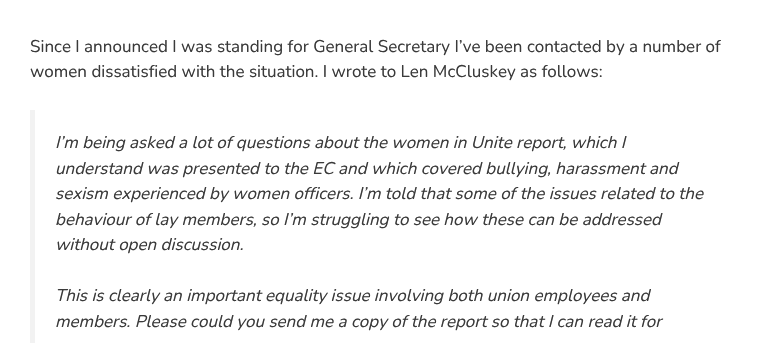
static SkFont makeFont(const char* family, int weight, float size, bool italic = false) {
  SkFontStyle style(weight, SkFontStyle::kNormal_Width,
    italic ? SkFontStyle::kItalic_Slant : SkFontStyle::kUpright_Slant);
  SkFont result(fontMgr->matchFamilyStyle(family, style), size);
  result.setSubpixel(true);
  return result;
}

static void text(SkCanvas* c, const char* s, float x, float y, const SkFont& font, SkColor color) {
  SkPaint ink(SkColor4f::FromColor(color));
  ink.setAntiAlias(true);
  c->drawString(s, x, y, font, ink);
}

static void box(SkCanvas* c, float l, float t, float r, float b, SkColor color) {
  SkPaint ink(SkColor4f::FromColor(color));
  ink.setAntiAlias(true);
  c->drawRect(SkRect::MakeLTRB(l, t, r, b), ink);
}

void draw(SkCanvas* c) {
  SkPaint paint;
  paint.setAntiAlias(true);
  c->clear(0xffffffff);
  SkFont face1 = makeFont("Nunito", 400, 17);
  text(c, "Since I announced I was standing for General Secretary I’ve been contacted by a number of", 30, 52, face1, 0xff3a3a3a);
  text(c, "women dissatisfied with the situation. I wrote to Len McCluskey as follows:", 30, 77, face1, 0xff3a3a3a);
  box(c, 30, 110, 35, 343, 0xfff2f2f2);
  SkFont face2 = makeFont("Nunito", 400, 17, true);
  text(c, "I’m being asked a lot of questions about the women in Unite report, which I", 55, 148, face2, 0xff3a3a3a);
  text(c, "understand was presented to the EC and which covered bullying, harassment and", 55, 174, face2, 0xff3a3a3a);
  text(c, "sexism experienced by women officers. I’m told that some of the issues related to the", 55, 199, face2, 0xff3a3a3a);
  text(c, "behaviour of lay members, so I’m struggling to see how these can be addressed", 55, 225, face2, 0xff3a3a3a);
  text(c, "without open discussion.", 55, 250, face2, 0xff3a3a3a);
  text(c, "This is clearly an important equality issue involving both union employees and", 55, 301, face2, 0xff3a3a3a);
  text(c, "members. Please could you send me a copy of the report so that I can read it for", 55, 327, face2, 0xff3a3a3a);
}
